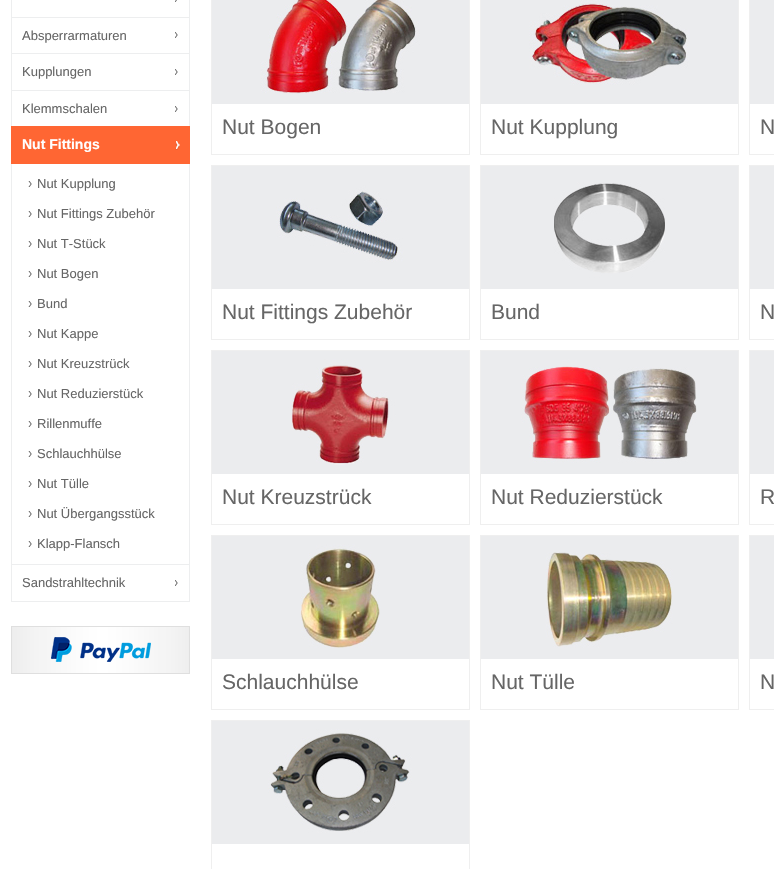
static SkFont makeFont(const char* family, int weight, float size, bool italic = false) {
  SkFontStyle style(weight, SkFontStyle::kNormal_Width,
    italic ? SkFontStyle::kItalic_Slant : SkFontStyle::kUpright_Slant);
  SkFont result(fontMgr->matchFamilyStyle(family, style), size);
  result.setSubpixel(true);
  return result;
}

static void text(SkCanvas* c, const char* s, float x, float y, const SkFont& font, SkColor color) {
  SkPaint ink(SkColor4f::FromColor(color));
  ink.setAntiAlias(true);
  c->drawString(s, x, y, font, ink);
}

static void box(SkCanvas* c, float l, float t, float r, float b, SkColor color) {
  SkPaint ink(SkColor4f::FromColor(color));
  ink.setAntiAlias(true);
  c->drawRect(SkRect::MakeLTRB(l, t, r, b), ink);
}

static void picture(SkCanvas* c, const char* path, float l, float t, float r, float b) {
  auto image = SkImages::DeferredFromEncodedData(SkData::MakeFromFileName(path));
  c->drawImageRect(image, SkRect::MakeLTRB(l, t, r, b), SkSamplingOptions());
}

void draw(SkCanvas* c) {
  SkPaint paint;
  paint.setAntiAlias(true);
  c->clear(0xffffffff);
  box(c, 189, 0, 190, 17, 0xffedeeef);
  box(c, 11, 0, 12, 17, 0xffedeeef);
  picture(c, "img_01.png", 175, 0, 177, 2);
  box(c, 11, 17, 190, 18, 0xffedeeef);
  box(c, 189, 17, 190, 53, 0xffedeeef);
  box(c, 11, 17, 12, 53, 0xffedeeef);
  picture(c, "img_02.png", 175, 32, 178, 38);
  SkFont face1 = makeFont("Liberation Sans", 400, 13);
  text(c, "Absperrarmaturen", 22, 40, face1, 0xff666666);
  box(c, 11, 53, 190, 54, 0xffedeeef);
  box(c, 189, 53, 190, 90, 0xffedeeef);
  box(c, 11, 53, 12, 90, 0xffedeeef);
  picture(c, "img_02.png", 175, 69, 178, 75);
  text(c, "Kupplungen", 22, 76, face1, 0xff666666);
  box(c, 11, 90, 190, 91, 0xffedeeef);
  box(c, 189, 90, 190, 126, 0xffedeeef);
  box(c, 11, 90, 12, 126, 0xffedeeef);
  picture(c, "img_02.png", 175, 106, 178, 112);
  text(c, "Klemmschalen", 22, 113, face1, 0xff666666);
  box(c, 11, 126, 190, 164, 0xffff6633);
  picture(c, "img_03.png", 175, 141, 180, 150);
  SkFont face2 = makeFont("Liberation Sans", 700, 14);
  text(c, "Nut Fittings", 22, 149, face2, 0xffffffff);
  box(c, 189, 164, 190, 564, 0xffedeeef);
  box(c, 11, 164, 12, 564, 0xffedeeef);
  picture(c, "img_04.png", 28, 181, 32, 187);
  text(c, "Nut Kupplung", 37, 188, face1, 0xff666666);
  picture(c, "img_04.png", 28, 211, 32, 217);
  text(c, "Nut Fittings Zubehör", 37, 218, face1, 0xff666666);
  picture(c, "img_04.png", 28, 241, 32, 247);
  text(c, "Nut T-Stück", 37, 248, face1, 0xff666666);
  picture(c, "img_04.png", 28, 271, 32, 277);
  text(c, "Nut Bogen", 37, 278, face1, 0xff666666);
  picture(c, "img_04.png", 28, 301, 32, 307);
  text(c, "Bund", 37, 308, face1, 0xff666666);
  picture(c, "img_04.png", 28, 331, 32, 337);
  text(c, "Nut Kappe", 37, 338, face1, 0xff666666);
  picture(c, "img_04.png", 28, 361, 32, 367);
  text(c, "Nut Kreuzstrück", 37, 368, face1, 0xff666666);
  picture(c, "img_04.png", 28, 391, 32, 397);
  text(c, "Nut Reduzierstück", 37, 398, face1, 0xff666666);
  picture(c, "img_04.png", 28, 421, 32, 427);
  text(c, "Rillenmuffe", 37, 428, face1, 0xff666666);
  picture(c, "img_04.png", 28, 451, 32, 457);
  text(c, "Schlauchhülse", 37, 458, face1, 0xff666666);
  picture(c, "img_04.png", 28, 481, 32, 487);
  text(c, "Nut Tülle", 37, 488, face1, 0xff666666);
  picture(c, "img_04.png", 28, 511, 32, 517);
  text(c, "Nut Übergangsstück", 37, 518, face1, 0xff666666);
  picture(c, "img_04.png", 28, 541, 32, 547);
  text(c, "Klapp-Flansch", 37, 548, face1, 0xff666666);
  box(c, 11, 564, 190, 565, 0xffedeeef);
  box(c, 189, 564, 190, 601, 0xffedeeef);
  box(c, 11, 564, 12, 601, 0xffedeeef);
  picture(c, "img_02.png", 175, 580, 178, 586);
  text(c, "Sandstrahltechnik", 22, 587, face1, 0xff666666);
  box(c, 11, 601, 190, 602, 0xffedeeef);
  picture(c, "img_05.png", 12, 627, 189, 673);
  paint.setStyle(SkPaint::kStroke_Style);
  paint.setStrokeWidth(1);
  paint.setColor(0xffdfdfdf);
  c->drawRect(SkRect::MakeLTRB(11.5f, 626.5f, 189.5f, 673.5f), paint);
  picture(c, "img_06.png", 51, 637, 151, 662);
  paint.setColor(0xffefefef);
  c->drawRect(SkRect::MakeLTRB(211.5f, -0.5f, 469.5f, 154.5f), paint);
  picture(c, "img_07.png", 212, 0, 469, 104);
  SkFont face3 = makeFont("Liberation Sans", 400, 21);
  text(c, "Nut Bogen", 222, 134, face3, 0xff666666);
  c->drawRect(SkRect::MakeLTRB(480.5f, -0.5f, 738.5f, 154.5f), paint);
  picture(c, "img_08.png", 481, 0, 738, 104);
  text(c, "Nut Kupplung", 491, 134, face3, 0xff666666);
  c->drawRect(SkRect::MakeLTRB(749.5f, -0.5f, 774.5f, 154.5f), paint);
  box(c, 750, 0, 774, 104, 0xffebecee);
  text(c, "N", 760, 134, face3, 0xff666666);
  c->drawRect(SkRect::MakeLTRB(211.5f, 165.5f, 469.5f, 339.5f), paint);
  picture(c, "img_09.png", 212, 166, 469, 289);
  text(c, "Nut Fittings Zubehör", 222, 319, face3, 0xff666666);
  c->drawRect(SkRect::MakeLTRB(480.5f, 165.5f, 738.5f, 339.5f), paint);
  picture(c, "img_10.png", 481, 166, 738, 289);
  text(c, "Bund", 491, 319, face3, 0xff666666);
  c->drawRect(SkRect::MakeLTRB(749.5f, 165.5f, 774.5f, 339.5f), paint);
  box(c, 750, 166, 774, 289, 0xffebecee);
  text(c, "N", 760, 319, face3, 0xff666666);
  c->drawRect(SkRect::MakeLTRB(211.5f, 350.5f, 469.5f, 524.5f), paint);
  picture(c, "img_11.png", 212, 351, 469, 474);
  text(c, "Nut Kreuzstrück", 222, 504, face3, 0xff666666);
  c->drawRect(SkRect::MakeLTRB(480.5f, 350.5f, 738.5f, 524.5f), paint);
  picture(c, "img_12.png", 481, 351, 738, 474);
  text(c, "Nut Reduzierstück", 491, 504, face3, 0xff666666);
  c->drawRect(SkRect::MakeLTRB(749.5f, 350.5f, 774.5f, 524.5f), paint);
  box(c, 750, 351, 774, 474, 0xffebecee);
  text(c, "R", 760, 504, face3, 0xff666666);
  c->drawRect(SkRect::MakeLTRB(211.5f, 535.5f, 469.5f, 709.5f), paint);
  picture(c, "img_13.png", 212, 536, 469, 659);
  text(c, "Schlauchhülse", 222, 689, face3, 0xff666666);
  c->drawRect(SkRect::MakeLTRB(480.5f, 535.5f, 738.5f, 709.5f), paint);
  picture(c, "img_14.png", 481, 536, 738, 659);
  text(c, "Nut Tülle", 491, 689, face3, 0xff666666);
  c->drawRect(SkRect::MakeLTRB(749.5f, 535.5f, 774.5f, 709.5f), paint);
  box(c, 750, 536, 774, 659, 0xffebecee);
  text(c, "N", 760, 689, face3, 0xff666666);
  c->drawRect(SkRect::MakeLTRB(211.5f, 720.5f, 469.5f, 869.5f), paint);
  picture(c, "img_15.png", 212, 721, 469, 844);
}
